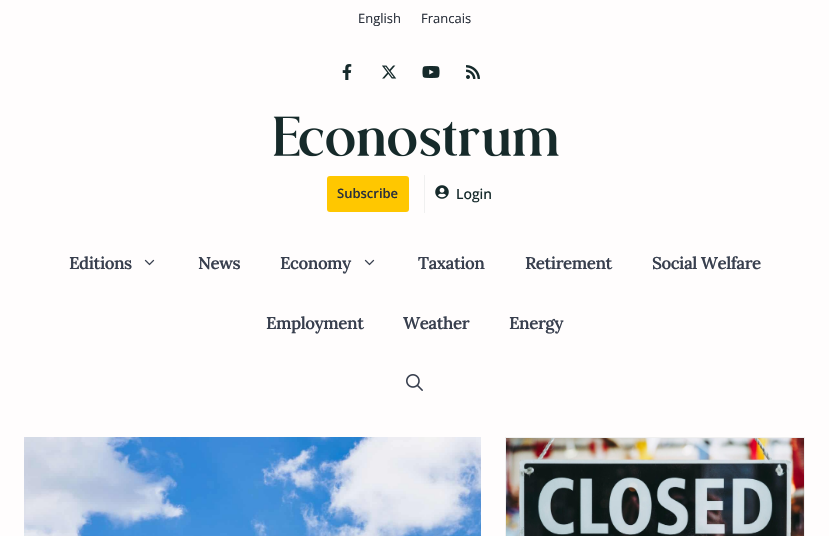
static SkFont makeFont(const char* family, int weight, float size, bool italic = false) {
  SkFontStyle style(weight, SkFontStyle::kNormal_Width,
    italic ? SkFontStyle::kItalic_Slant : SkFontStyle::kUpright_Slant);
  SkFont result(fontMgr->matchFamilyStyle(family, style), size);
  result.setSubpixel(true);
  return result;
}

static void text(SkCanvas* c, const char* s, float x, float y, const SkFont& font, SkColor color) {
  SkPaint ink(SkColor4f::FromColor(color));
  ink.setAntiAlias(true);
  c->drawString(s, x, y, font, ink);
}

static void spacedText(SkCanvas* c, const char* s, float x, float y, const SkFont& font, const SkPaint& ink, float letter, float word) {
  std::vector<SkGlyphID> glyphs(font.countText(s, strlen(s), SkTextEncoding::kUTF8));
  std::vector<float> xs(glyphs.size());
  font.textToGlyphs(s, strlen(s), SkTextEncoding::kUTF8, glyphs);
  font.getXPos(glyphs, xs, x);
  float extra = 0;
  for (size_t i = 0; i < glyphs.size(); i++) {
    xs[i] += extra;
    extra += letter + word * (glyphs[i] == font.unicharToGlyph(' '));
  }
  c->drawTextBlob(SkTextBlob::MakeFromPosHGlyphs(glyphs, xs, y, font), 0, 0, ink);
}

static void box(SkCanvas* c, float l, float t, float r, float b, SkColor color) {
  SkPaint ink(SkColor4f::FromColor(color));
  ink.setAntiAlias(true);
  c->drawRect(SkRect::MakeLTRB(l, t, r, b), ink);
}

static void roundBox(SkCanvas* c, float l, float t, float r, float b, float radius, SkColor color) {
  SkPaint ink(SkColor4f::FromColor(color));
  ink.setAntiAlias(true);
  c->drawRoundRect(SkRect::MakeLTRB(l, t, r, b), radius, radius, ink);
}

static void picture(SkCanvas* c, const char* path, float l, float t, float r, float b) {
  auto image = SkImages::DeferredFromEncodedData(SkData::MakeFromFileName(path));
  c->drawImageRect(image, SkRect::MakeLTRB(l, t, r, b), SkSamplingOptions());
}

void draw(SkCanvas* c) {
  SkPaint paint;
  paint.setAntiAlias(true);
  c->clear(0xfffffdfd);
  SkFont face1 = makeFont("Open Sans", 400, 13);
  text(c, "English", 358, 23, face1, 0xff2a303b);
  text(c, "Francais", 421, 23, face1, 0xff2a303b);
  picture(c, "img_01.png", 342, 64, 352, 80);
  picture(c, "img_02.png", 382, 65, 397, 79);
  picture(c, "img_03.png", 422, 66, 440, 78);
  picture(c, "img_04.png", 466, 65, 480, 79);
  picture(c, "img_05.png", 273, 116, 559, 157);
  roundBox(c, 327, 176, 409, 212, 3, 0xffffc700);
  SkFont face2 = makeFont("Open Sans", 600, 13);
  text(c, "Subscribe", 337, 198, face2, 0xff2a303b);
  box(c, 424, 175, 425, 213, 0xfff0f0f0);
  picture(c, "img_06.png", 435, 185, 449, 199);
  SkFont face3 = makeFont("Open Sans", 500, 14);
  text(c, "Login", 456, 199, face3, 0xff162a2b);
  SkFont face4 = makeFont("Lora", 600, 17);
  paint.setColor(0xff383f4e);
  spacedText(c, "Editions", 69, 269, face4, paint, -0.5f, 0);
  picture(c, "img_07.png", 144, 259, 155, 266);
  spacedText(c, "News", 198, 269, face4, paint, -0.5f, 0);
  spacedText(c, "Economy", 280, 269, face4, paint, -0.5f, 0);
  picture(c, "img_07.png", 364, 259, 375, 266);
  spacedText(c, "Taxation", 418, 269, face4, paint, -0.5f, 0);
  spacedText(c, "Retirement", 525, 269, face4, paint, -0.5f, 0);
  spacedText(c, "Social Welfare", 652, 269, face4, paint, -0.5f, 0);
  spacedText(c, "Employment", 266, 329, face4, paint, -0.5f, 0);
  spacedText(c, "Weather", 403, 329, face4, paint, -0.5f, 0);
  spacedText(c, "Energy", 509, 329, face4, paint, -0.5f, 0);
  picture(c, "img_08.png", 406, 374, 423, 391);
  picture(c, "img_09.png", 24, 437, 481, 536);
  paint.setStyle(SkPaint::kStroke_Style);
  paint.setStrokeWidth(1);
  paint.setColor(0xfff0f0f0);
  c->drawRect(SkRect::MakeLTRB(505.5f, 437.5f, 804.5f, 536.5f), paint);
  picture(c, "img_10.png", 506, 438, 804, 536);
}
